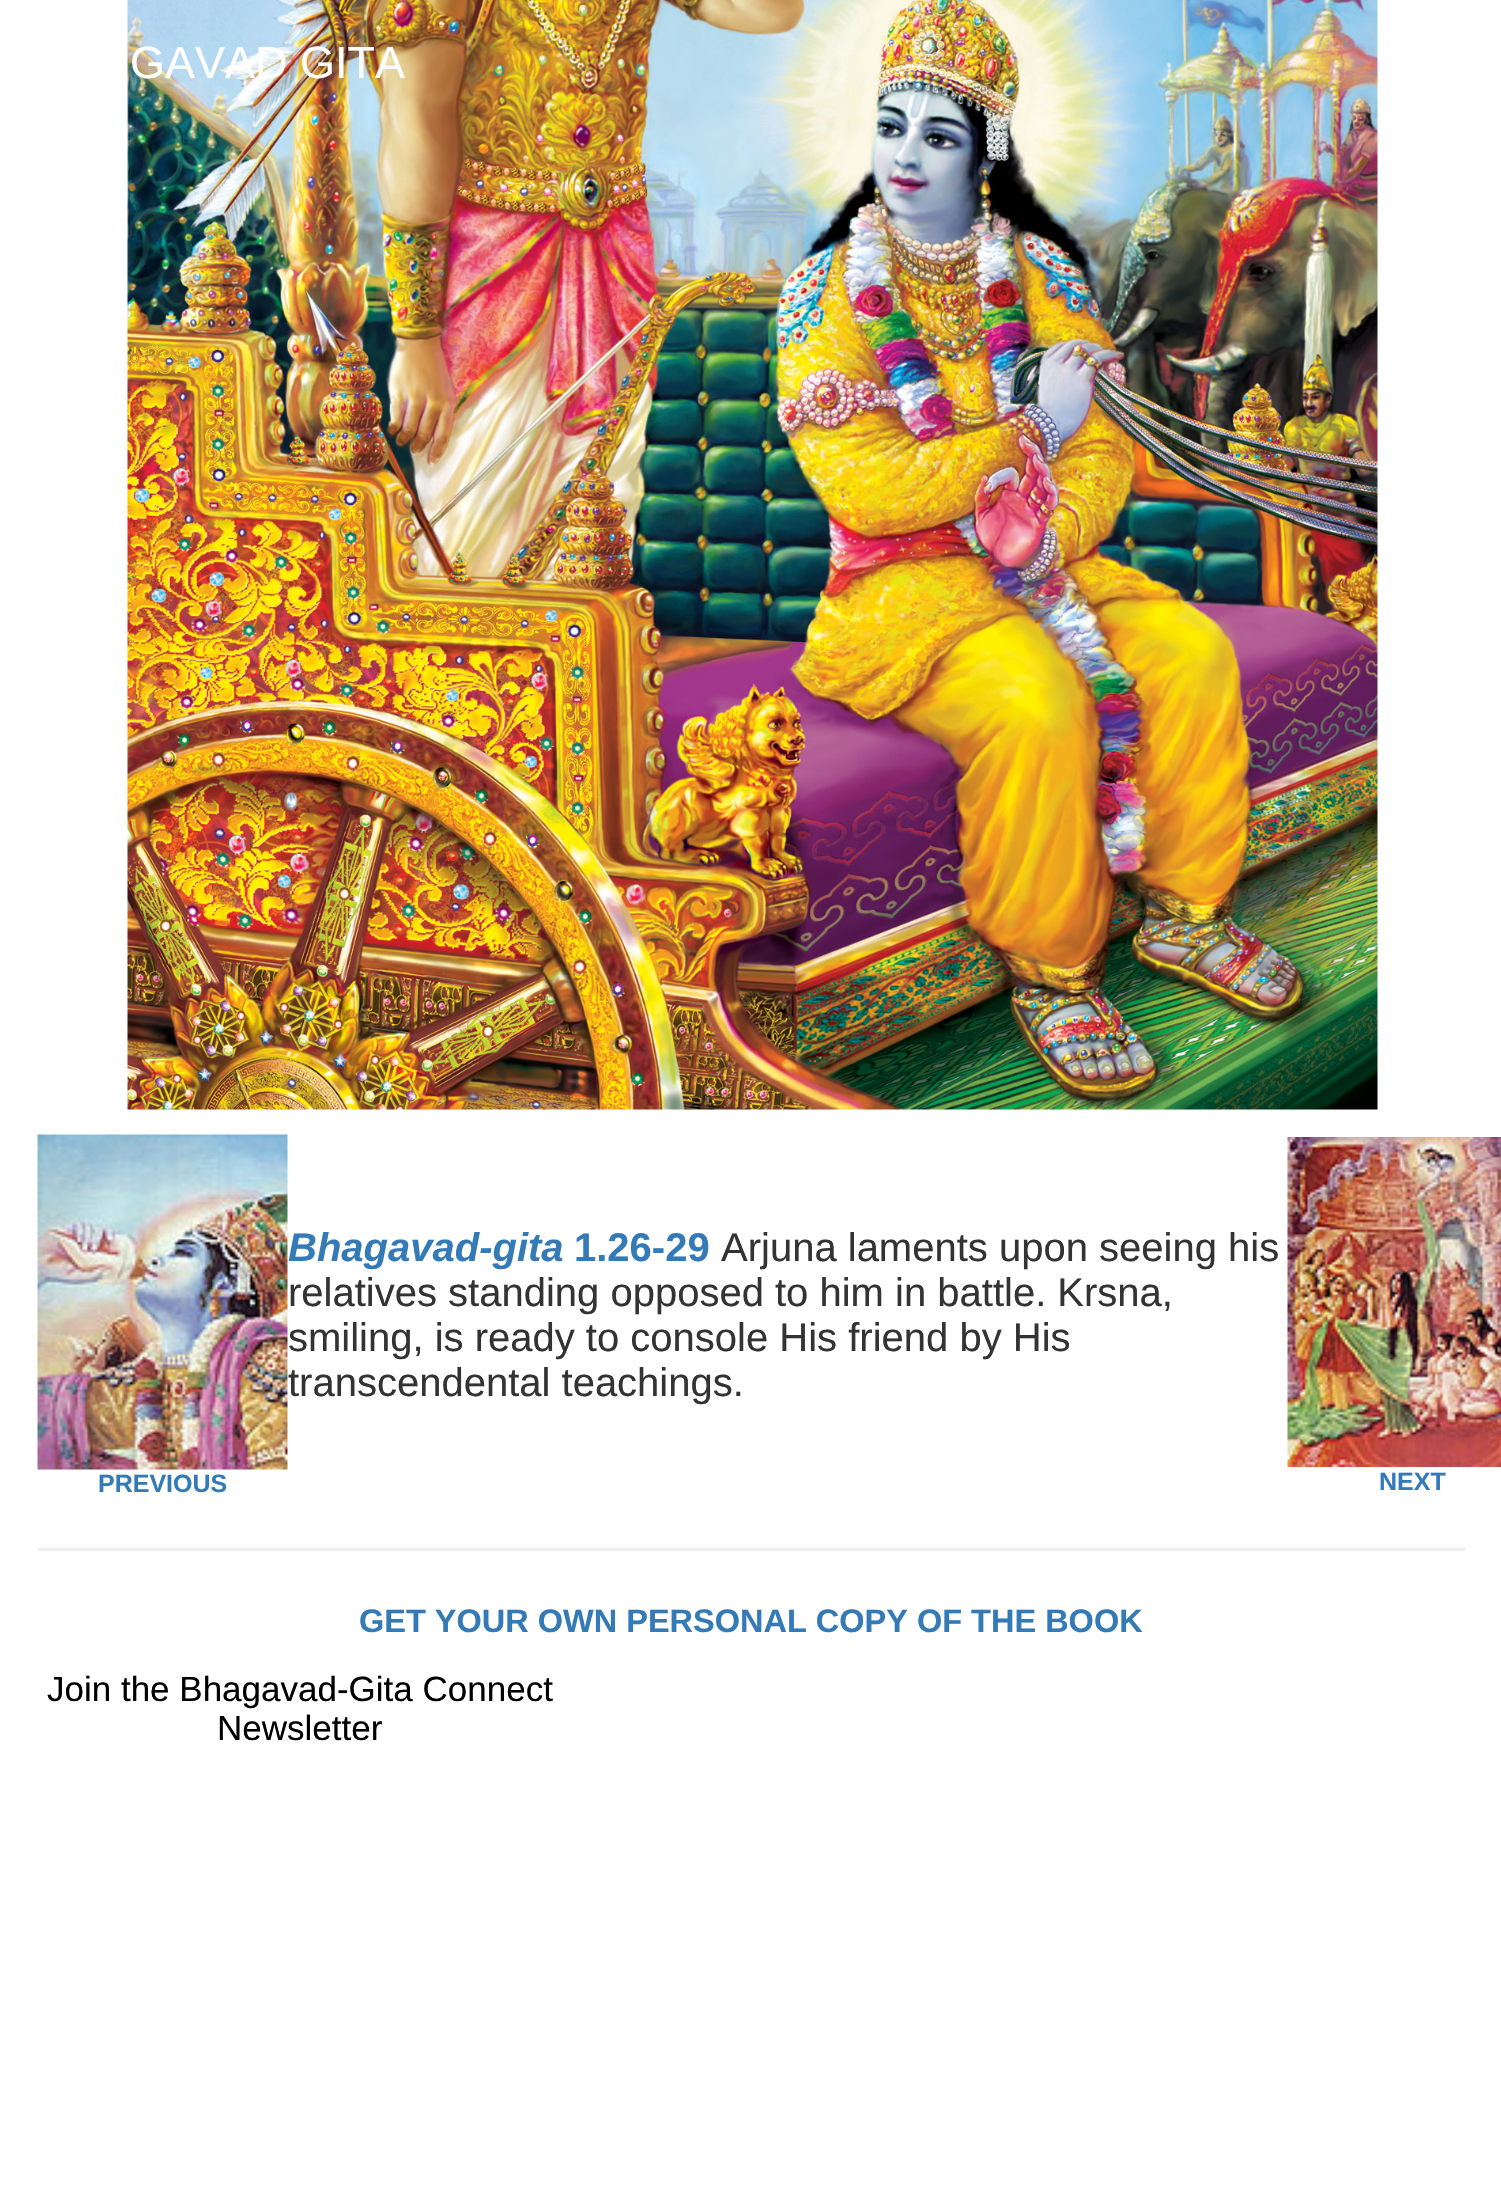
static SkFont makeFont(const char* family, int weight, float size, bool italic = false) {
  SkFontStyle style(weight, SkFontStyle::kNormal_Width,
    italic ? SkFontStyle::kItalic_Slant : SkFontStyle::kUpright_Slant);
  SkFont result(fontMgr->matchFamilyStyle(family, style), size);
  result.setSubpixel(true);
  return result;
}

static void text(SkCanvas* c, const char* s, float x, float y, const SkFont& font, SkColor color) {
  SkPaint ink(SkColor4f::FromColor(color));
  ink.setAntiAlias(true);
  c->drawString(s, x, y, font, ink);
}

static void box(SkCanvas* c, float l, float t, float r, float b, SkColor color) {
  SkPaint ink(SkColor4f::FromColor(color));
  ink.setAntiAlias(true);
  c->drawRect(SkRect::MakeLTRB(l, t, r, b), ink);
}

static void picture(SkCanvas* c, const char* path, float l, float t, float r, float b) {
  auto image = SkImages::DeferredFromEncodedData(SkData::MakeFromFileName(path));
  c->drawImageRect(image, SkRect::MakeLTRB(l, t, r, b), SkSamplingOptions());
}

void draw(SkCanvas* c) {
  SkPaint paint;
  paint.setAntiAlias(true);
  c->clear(0xffffffff);
  picture(c, "img_01.png", 127, 0, 1378, 1110);
  SkFont face1 = makeFont("Liberation Sans", 400, 45);
  text(c, "GAVAD GITA", 130, 78, face1, 0xffffffff);
  SkFont face2 = makeFont("Liberation Sans", 700, 40, true);
  text(c, "Bhagavad-gita", 288, 1261, face2, 0xff337ab7);
  SkFont face3 = makeFont("Liberation Sans", 700, 40);
  text(c, "1.26-29", 574, 1261, face3, 0xff337ab7);
  SkFont face4 = makeFont("Liberation Sans", 400, 40);
  text(c, "Arjuna laments upon seeing his", 721, 1261, face4, 0xff333333);
  text(c, "relatives standing opposed to him in battle. Krsna,", 288, 1306, face4, 0xff333333);
  text(c, "smiling, is ready to console His friend by His", 288, 1351, face4, 0xff333333);
  text(c, "transcendental teachings.", 288, 1396, face4, 0xff333333);
  picture(c, "img_02.png", 37, 1134, 288, 1470);
  SkFont face5 = makeFont("Liberation Sans", 700, 25);
  text(c, "PREVIOUS", 98, 1492, face5, 0xff337ab7);
  picture(c, "img_03.png", 1287, 1137, 1501, 1467);
  text(c, "NEXT", 1379, 1490, face5, 0xff337ab7);
  box(c, 38, 1548, 1465, 1551, 0xffeeeeee);
  SkFont face6 = makeFont("Liberation Sans", 700, 32.5f);
  text(c, "GET YOUR OWN PERSONAL COPY OF THE BOOK", 359, 1632, face6, 0xff337ab7);
  SkFont face7 = makeFont("Liberation Sans", 400, 35);
  text(c, "Join the Bhagavad-Gita Connect", 47, 1701, face7, 0xff000000);
  text(c, "Newsletter", 217, 1740, face7, 0xff000000);
}
